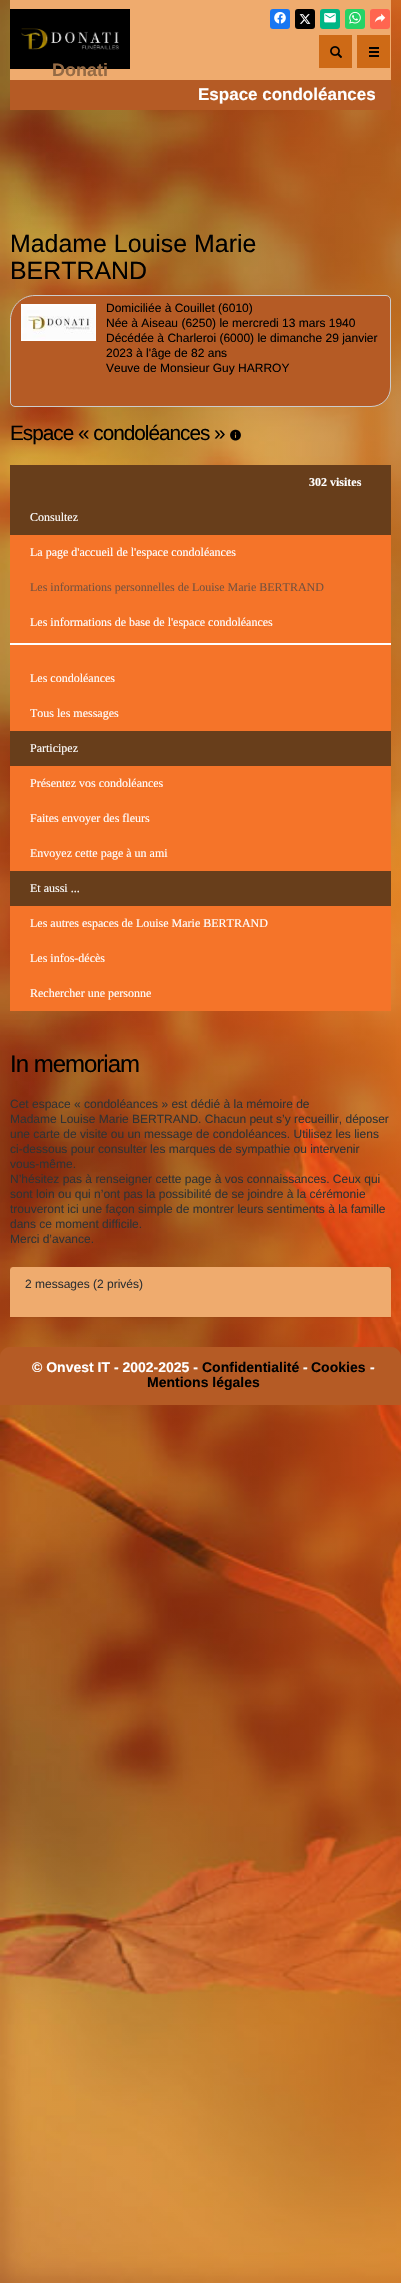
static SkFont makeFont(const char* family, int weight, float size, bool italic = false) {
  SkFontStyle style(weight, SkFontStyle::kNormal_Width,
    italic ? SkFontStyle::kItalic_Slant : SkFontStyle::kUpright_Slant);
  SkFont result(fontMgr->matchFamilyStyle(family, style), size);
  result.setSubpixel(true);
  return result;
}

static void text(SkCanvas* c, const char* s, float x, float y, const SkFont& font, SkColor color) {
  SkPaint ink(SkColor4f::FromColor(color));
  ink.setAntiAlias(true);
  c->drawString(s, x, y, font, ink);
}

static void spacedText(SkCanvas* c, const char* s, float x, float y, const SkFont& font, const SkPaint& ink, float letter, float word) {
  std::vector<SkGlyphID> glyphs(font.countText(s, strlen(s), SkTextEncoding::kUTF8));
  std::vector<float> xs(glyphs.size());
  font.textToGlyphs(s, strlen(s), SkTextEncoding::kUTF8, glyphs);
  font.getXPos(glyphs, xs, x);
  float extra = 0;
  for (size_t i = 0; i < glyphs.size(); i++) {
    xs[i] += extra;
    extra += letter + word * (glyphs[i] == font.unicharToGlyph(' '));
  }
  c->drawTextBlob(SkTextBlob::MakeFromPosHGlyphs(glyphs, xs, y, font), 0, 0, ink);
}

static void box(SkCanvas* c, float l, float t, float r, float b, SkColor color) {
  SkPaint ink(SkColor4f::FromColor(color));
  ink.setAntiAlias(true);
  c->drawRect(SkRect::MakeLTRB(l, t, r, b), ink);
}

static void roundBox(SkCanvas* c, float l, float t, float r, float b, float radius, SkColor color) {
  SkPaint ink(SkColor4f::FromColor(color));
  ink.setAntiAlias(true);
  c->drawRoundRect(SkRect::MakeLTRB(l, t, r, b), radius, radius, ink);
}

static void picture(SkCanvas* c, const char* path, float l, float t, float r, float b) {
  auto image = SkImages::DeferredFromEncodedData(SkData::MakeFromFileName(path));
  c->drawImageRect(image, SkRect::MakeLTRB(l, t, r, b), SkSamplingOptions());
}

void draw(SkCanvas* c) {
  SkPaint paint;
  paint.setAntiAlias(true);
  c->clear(0xffffffff);
  picture(c, "img_01.png", 0, 0, 401, 2283);
  box(c, 10, 0, 391, 80, 0xffefab6e);
  picture(c, "img_02.png", 10, 9, 130, 69);
  box(c, 319, 35, 352, 68, 0xffce6a16);
  picture(c, "img_03.png", 330, 46, 342, 58);
  box(c, 357, 35, 390, 68, 0xffce6a16);
  picture(c, "img_04.png", 369, 47, 379, 57);
  roundBox(c, 270, 9, 290, 29, 3, 0xff1877f2);
  picture(c, "img_05.png", 274, 12, 286, 24);
  roundBox(c, 295, 9, 315, 29, 3, 0xff000000);
  picture(c, "img_06.png", 299, 14, 311, 24);
  roundBox(c, 320, 9, 340, 29, 3, 0xff00b685);
  picture(c, "img_07.png", 324, 13, 336, 23);
  roundBox(c, 345, 9, 365, 29, 3, 0xff25d366);
  picture(c, "img_08.png", 349, 11, 361, 24);
  roundBox(c, 370, 9, 390, 29, 3, 0xffff6550);
  picture(c, "img_09.png", 374, 13, 386, 23);
  SkFont face1 = makeFont("Liberation Sans", 700, 18);
  text(c, "Donati", 52, 76, face1, 0xff956b45);
  box(c, 10, 80, 391, 110, 0xffb55b25);
  SkFont face2 = makeFont("Liberation Sans", 700, 17);
  text(c, "Espace condoléances", 198, 100, face2, 0xffffffff);
  SkFont face3 = makeFont("Liberation Sans", 400, 24.9f);
  text(c, "Madame Louise Marie", 10, 252, face3, 0xff000000);
  text(c, "BERTRAND", 10, 279, face3, 0xff000000);
  paint.setColor(0xffb55b25);
  c->drawPath(SkPathBuilder().moveTo(35, 295.5f).lineTo(386, 295.5f).cubicTo(388.5f, 295.5f, 390.5f, 297.5f, 390.5f, 300).lineTo(390.5f, 387).cubicTo(390.5f, 398, 382, 406.5f, 371, 406.5f).lineTo(15, 406.5f).cubicTo(12.5f, 406.5f, 10.5f, 404.5f, 10.5f, 402).lineTo(10.5f, 320).cubicTo(10.5f, 306.5f, 21.5f, 295.5f, 35, 295.5f).close().detach(), paint);
  paint.setStyle(SkPaint::kStroke_Style);
  paint.setStrokeWidth(1);
  paint.setColor(0xffcccccc);
  c->drawPath(SkPathBuilder().moveTo(35, 295.5f).lineTo(386, 295.5f).cubicTo(388.5f, 295.5f, 390.5f, 297.5f, 390.5f, 300).lineTo(390.5f, 387).cubicTo(390.5f, 398, 382, 406.5f, 371, 406.5f).lineTo(15, 406.5f).cubicTo(12.5f, 406.5f, 10.5f, 404.5f, 10.5f, 402).lineTo(10.5f, 320).cubicTo(10.5f, 306.5f, 21.5f, 295.5f, 35, 295.5f).close().detach(), paint);
  picture(c, "img_10.png", 21, 304, 96, 341);
  SkFont face4 = makeFont("Liberation Sans", 400, 12);
  text(c, "Domiciliée à Couillet (6010)", 106, 312, face4, 0xff000000);
  text(c, "Née à Aiseau (6250) le mercredi 13 mars 1940", 106, 327, face4, 0xff000000);
  text(c, "Décédée à Charleroi (6000) le dimanche 29 janvier", 106, 342, face4, 0xff000000);
  text(c, "2023 à l'âge de 82 ans", 106, 357, face4, 0xff000000);
  text(c, "Veuve de Monsieur Guy HARROY", 106, 372, face4, 0xff000000);
  SkFont face5 = makeFont("Liberation Sans", 400, 20.75f);
  paint.setStyle(SkPaint::kFill_Style);
  paint.setColor(0xff000000);
  spacedText(c, "Espace « condoléances »", 10, 440, face5, paint, -1, 0);
  picture(c, "img_11.png", 230, 429, 241, 441);
  box(c, 10, 465, 391, 906, 0xff683e1b);
  SkFont face6 = makeFont("Liberation Serif", 700, 12);
  text(c, "302 visites", 309, 486, face6, 0xffffffff);
  SkFont face7 = makeFont("Liberation Serif", 400, 12);
  text(c, "Consultez", 30, 521, face7, 0xffffffff);
  box(c, 10, 535, 391, 731, 0xfff57429);
  text(c, "La page d'accueil de l'espace condoléances", 30, 556, face7, 0xffffffff);
  text(c, "Les informations personnelles de Louise Marie BERTRAND", 30, 591, face7, 0xff79523c);
  text(c, "Les informations de base de l'espace condoléances", 30, 626, face7, 0xffffffff);
  box(c, 10, 643, 391, 645, 0xffffffff);
  text(c, "Les condoléances", 30, 682, face7, 0xffffffff);
  text(c, "Tous les messages", 30, 717, face7, 0xffffffff);
  text(c, "Participez", 30, 752, face7, 0xffffffff);
  box(c, 10, 766, 391, 871, 0xfff57429);
  text(c, "Présentez vos condoléances", 30, 787, face7, 0xffffffff);
  text(c, "Faites envoyer des fleurs", 30, 822, face7, 0xffffffff);
  text(c, "Envoyez cette page à un ami", 30, 857, face7, 0xffffffff);
  text(c, "Et aussi ...", 30, 892, face7, 0xffffffff);
  box(c, 10, 906, 391, 1011, 0xfff57429);
  text(c, "Les autres espaces de Louise Marie BERTRAND", 30, 927, face7, 0xffffffff);
  text(c, "Les infos-décès", 30, 962, face7, 0xffffffff);
  text(c, "Rechercher une personne", 30, 997, face7, 0xffffffff);
  SkFont face8 = makeFont("Liberation Sans", 400, 24);
  spacedText(c, "In memoriam", 10, 1072, face8, paint, -1, 0);
  text(c, "Cet espace « condoléances » est dédié à la mémoire de", 10, 1108, face4, 0xff323232);
  text(c, "Madame Louise Marie BERTRAND. Chacun peut s’y recueillir, déposer", 10, 1123, face4, 0xff323232);
  text(c, "une carte de visite ou un message de condoléances. Utilisez les liens", 10, 1138, face4, 0xff323232);
  text(c, "ci-dessous pour consulter les marques de sympathie ou intervenir", 10, 1153, face4, 0xff323232);
  text(c, "vous-même.", 10, 1168, face4, 0xff323232);
  text(c, "N’hésitez pas à renseigner cette page à vos connaissances. Ceux qui", 10, 1183, face4, 0xff323232);
  text(c, "sont loin ou qui n’ont pas la possibilité de se joindre à la cérémonie", 10, 1198, face4, 0xff323232);
  text(c, "trouveront ici une façon simple de montrer leurs sentiments à la famille", 10, 1213, face4, 0xff323232);
  text(c, "dans ce moment difficile.", 10, 1228, face4, 0xff323232);
  text(c, "Merci d’avance.", 10, 1243, face4, 0xff323232);
  paint.setColor(0x0d000000);
  paint.setMaskFilter(SkMaskFilter::MakeBlur(kNormal_SkBlurStyle, 1));
  c->drawRect(SkRect::MakeLTRB(10, 1268, 391, 1318), paint);
  paint.setMaskFilter(nullptr);
  box(c, 10, 1267, 391, 1270, 0xffb55b25);
  paint.setColor(0xffefab6e);
  c->drawPath(SkPathBuilder().moveTo(13, 1267).lineTo(388, 1267).cubicTo(389.5f, 1267, 391, 1268.5f, 391, 1270).lineTo(391, 1317).lineTo(10, 1317).lineTo(10, 1270).cubicTo(10, 1268.5f, 11.5f, 1267, 13, 1267).close().detach(), paint);
  text(c, "2 messages (2 privés)", 25, 1288, face4, 0xff323232);
  paint.setColor(0xffb55b25);
  c->drawPath(SkPathBuilder().moveTo(10, 1347).lineTo(391, 1347).cubicTo(396.5f, 1347, 401, 1351.5f, 401, 1357).lineTo(401, 1405).lineTo(0, 1405).lineTo(0, 1357).cubicTo(0, 1351.5f, 4.5f, 1347, 10, 1347).close().detach(), paint);
  SkFont face9 = makeFont("Liberation Sans", 700, 14);
  text(c, "© Onvest IT - 2002-2025 -", 32, 1372, face9, 0xffffffff);
  text(c, "Confidentialité", 202, 1372, face9, 0xff000000);
  text(c, "-", 303, 1372, face9, 0xffffffff);
  text(c, "Cookies", 311, 1372, face9, 0xff000000);
  text(c, "-", 370, 1372, face9, 0xffffffff);
  text(c, "Mentions légales", 147, 1387, face9, 0xff000000);
}
